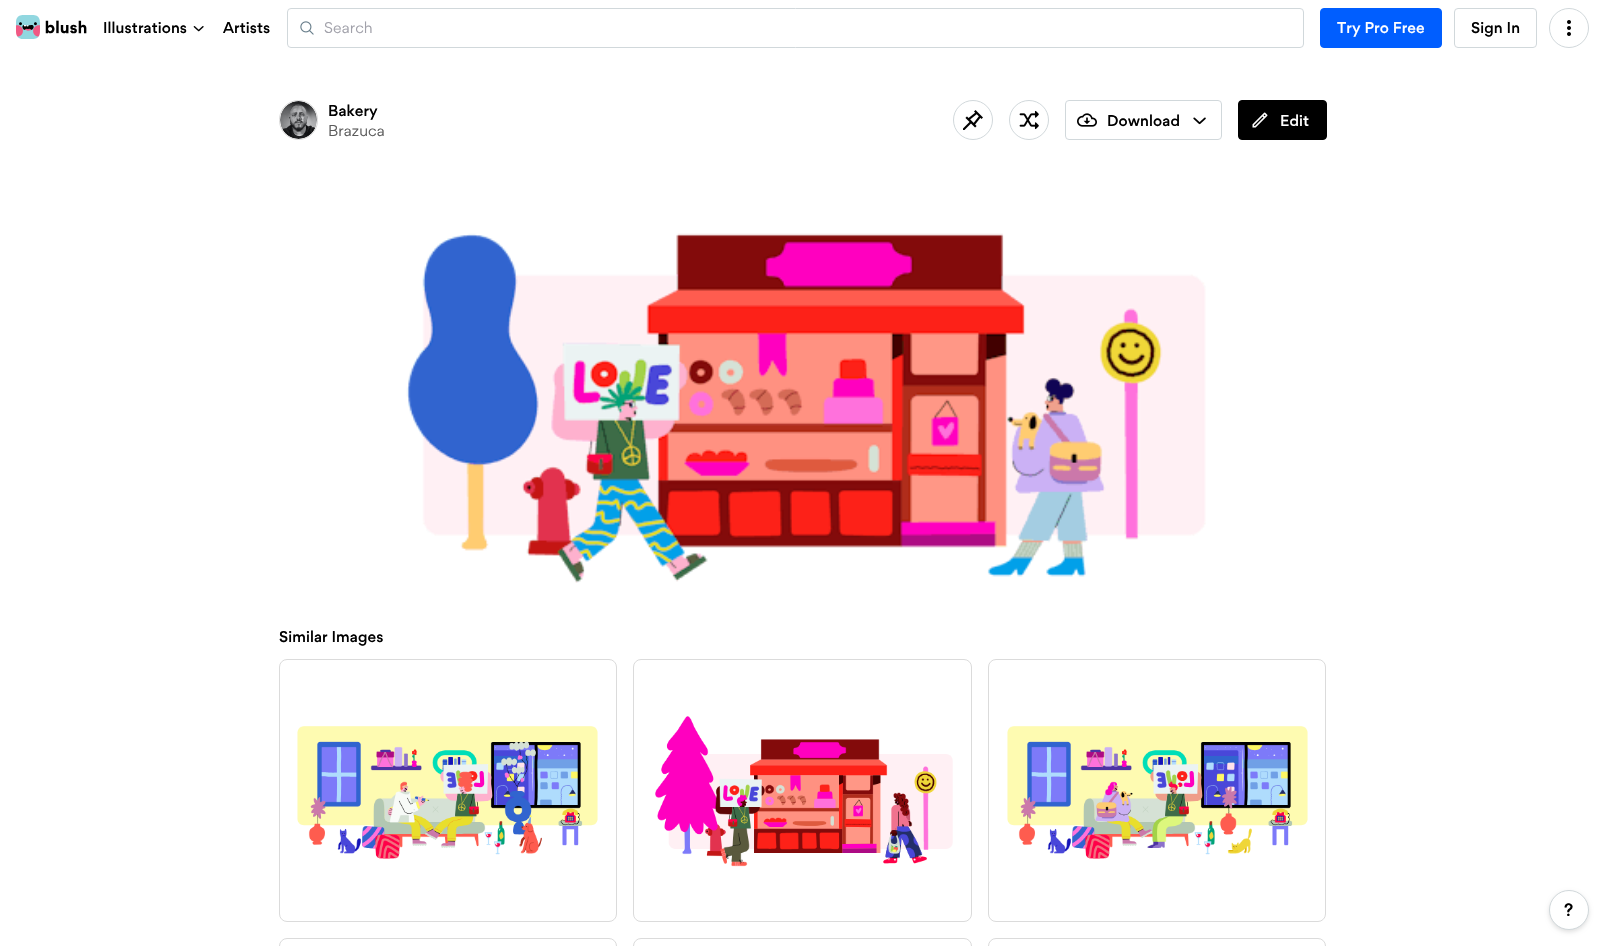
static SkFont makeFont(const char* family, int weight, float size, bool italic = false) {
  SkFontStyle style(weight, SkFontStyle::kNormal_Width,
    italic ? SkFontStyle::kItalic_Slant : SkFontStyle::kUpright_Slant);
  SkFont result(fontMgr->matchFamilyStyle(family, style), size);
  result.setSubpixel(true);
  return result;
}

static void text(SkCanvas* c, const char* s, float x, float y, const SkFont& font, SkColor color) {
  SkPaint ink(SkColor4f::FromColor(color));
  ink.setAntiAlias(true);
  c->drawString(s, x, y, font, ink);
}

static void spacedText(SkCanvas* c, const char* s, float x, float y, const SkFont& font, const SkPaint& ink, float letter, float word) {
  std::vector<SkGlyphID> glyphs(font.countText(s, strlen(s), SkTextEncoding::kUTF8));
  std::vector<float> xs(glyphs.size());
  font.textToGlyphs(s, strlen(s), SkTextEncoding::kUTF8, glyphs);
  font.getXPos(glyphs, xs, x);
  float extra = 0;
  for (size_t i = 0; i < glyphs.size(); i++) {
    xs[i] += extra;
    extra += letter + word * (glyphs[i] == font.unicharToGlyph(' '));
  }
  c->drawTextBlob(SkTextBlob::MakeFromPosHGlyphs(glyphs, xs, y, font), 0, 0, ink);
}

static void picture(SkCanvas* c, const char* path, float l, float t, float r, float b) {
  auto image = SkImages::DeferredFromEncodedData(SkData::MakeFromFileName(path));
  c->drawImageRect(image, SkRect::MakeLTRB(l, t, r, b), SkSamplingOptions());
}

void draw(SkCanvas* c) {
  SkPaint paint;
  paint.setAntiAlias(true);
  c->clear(0xffffffff);
  picture(c, "img_01.png", 16, 15, 87, 39);
  SkFont face1 = makeFont("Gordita", 500, 14);
  paint.setColor(0xff000000);
  spacedText(c, "Illustrations", 103, 33, face1, paint, 0.1f, 0);
  picture(c, "img_02.png", 193, 26, 204, 32);
  spacedText(c, "Artists", 223, 33, face1, paint, 0.1f, 0);
  paint.setStyle(SkPaint::kStroke_Style);
  paint.setStrokeWidth(1);
  paint.setColor(0xffd1d8db);
  c->drawRoundRect(SkRect::MakeLTRB(287.5f, 8.5f, 1303.5f, 47.5f), 3.5f, 3.5f, paint);
  picture(c, "img_03.png", 300, 21, 314, 35);
  SkFont face2 = makeFont("Gordita", 400, 14);
  paint.setStyle(SkPaint::kFill_Style);
  paint.setColor(0xffa1a1aa);
  spacedText(c, "Search", 324, 33, face2, paint, 0.1f, 0);
  paint.setColor(0xff005eff);
  c->drawRoundRect(SkRect::MakeLTRB(1320.5f, 8.5f, 1441.5f, 47.5f), 3.5f, 3.5f, paint);
  paint.setStyle(SkPaint::kStroke_Style);
  c->drawRoundRect(SkRect::MakeLTRB(1320.5f, 8.5f, 1441.5f, 47.5f), 3.5f, 3.5f, paint);
  paint.setStyle(SkPaint::kFill_Style);
  paint.setColor(0xffffffff);
  spacedText(c, "Try Pro Free", 1337, 33, face1, paint, 0.1f, 0);
  paint.setStyle(SkPaint::kStroke_Style);
  paint.setColor(0xffd1d8db);
  c->drawRoundRect(SkRect::MakeLTRB(1454.5f, 8.5f, 1536.5f, 47.5f), 3.5f, 3.5f, paint);
  paint.setStyle(SkPaint::kFill_Style);
  paint.setColor(0xff000000);
  spacedText(c, "Sign In", 1471, 33, face1, paint, 0.1f, 0);
  paint.setStyle(SkPaint::kStroke_Style);
  paint.setColor(0xffd1d8db);
  c->drawCircle(1569, 28, 19.5f, paint);
  picture(c, "img_04.png", 1567, 20, 1571, 36);
  paint.setColor(0xffdbdbdb);
  c->drawRoundRect(SkRect::MakeLTRB(279.5f, 100.5f, 317.5f, 139.5f), 19, 19, paint);
  picture(c, "img_05.png", 280, 101, 317, 139);
  paint.setStyle(SkPaint::kFill_Style);
  paint.setColor(0xff000000);
  spacedText(c, "Bakery", 328, 116, face1, paint, 0.1f, 0);
  paint.setColor(0xff5b5b5b);
  spacedText(c, "Brazuca", 328, 136, face2, paint, 0.1f, 0);
  paint.setStyle(SkPaint::kStroke_Style);
  paint.setColor(0xffd1d8db);
  c->drawCircle(973, 120, 19.5f, paint);
  picture(c, "img_06.png", 963, 110, 983, 130);
  c->drawCircle(1029, 120, 19.5f, paint);
  picture(c, "img_07.png", 1019, 110, 1039, 130);
  c->drawRoundRect(SkRect::MakeLTRB(1065.5f, 100.5f, 1221.5f, 139.5f), 3.5f, 3.5f, paint);
  picture(c, "img_08.png", 1077, 113, 1097, 127);
  paint.setStyle(SkPaint::kFill_Style);
  paint.setColor(0xff000000);
  spacedText(c, "Download", 1107, 126, face1, paint, 0.1f, 0);
  picture(c, "img_09.png", 1193, 117, 1206, 125);
  c->drawRoundRect(SkRect::MakeLTRB(1238.5f, 100.5f, 1326.5f, 139.5f), 3.5f, 3.5f, paint);
  paint.setStyle(SkPaint::kStroke_Style);
  c->drawRoundRect(SkRect::MakeLTRB(1238.5f, 100.5f, 1326.5f, 139.5f), 3.5f, 3.5f, paint);
  picture(c, "img_10.png", 1252, 112, 1268, 128);
  paint.setStyle(SkPaint::kFill_Style);
  paint.setColor(0xffffffff);
  spacedText(c, "Edit", 1280, 126, face1, paint, 0.1f, 0);
  picture(c, "img_11.png", 406, 233, 1206, 583);
  paint.setColor(0xff000000);
  spacedText(c, "Similar Images", 279, 642, face1, paint, 0.1f, 0);
  paint.setStyle(SkPaint::kStroke_Style);
  paint.setColor(0xffdbdbdb);
  c->drawRoundRect(SkRect::MakeLTRB(279.5f, 659.5f, 616.5f, 921.5f), 7.5f, 7.5f, paint);
  picture(c, "img_12.png", 297, 726, 598, 859);
  c->drawRoundRect(SkRect::MakeLTRB(633.5f, 659.5f, 971.5f, 921.5f), 7.5f, 7.5f, paint);
  picture(c, "img_13.png", 655, 716, 953, 867);
  c->drawRoundRect(SkRect::MakeLTRB(988.5f, 659.5f, 1325.5f, 921.5f), 7.5f, 7.5f, paint);
  picture(c, "img_14.png", 1007, 726, 1308, 859);
  c->drawRoundRect(SkRect::MakeLTRB(279.5f, 938.5f, 616.5f, 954.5f), 7.5f, 7.5f, paint);
  c->drawRoundRect(SkRect::MakeLTRB(633.5f, 938.5f, 971.5f, 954.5f), 7.5f, 7.5f, paint);
  c->drawRoundRect(SkRect::MakeLTRB(988.5f, 938.5f, 1325.5f, 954.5f), 7.5f, 7.5f, paint);
  paint.setStyle(SkPaint::kFill_Style);
  paint.setColor(0x1f000000);
  paint.setMaskFilter(SkMaskFilter::MakeBlur(kNormal_SkBlurStyle, 2));
  c->drawRoundRect(SkRect::MakeLTRB(1549, 892, 1589, 932), 20, 20, paint);
  paint.setMaskFilter(nullptr);
  paint.setColor(0xffffffff);
  c->drawCircle(1569, 910, 19.5f, paint);
  paint.setStyle(SkPaint::kStroke_Style);
  paint.setColor(0xffd1d8db);
  c->drawCircle(1569, 910, 19.5f, paint);
  SkFont face3 = makeFont("Gordita", 500, 16);
  text(c, "?", 1564, 916, face3, 0xff000000);
}
